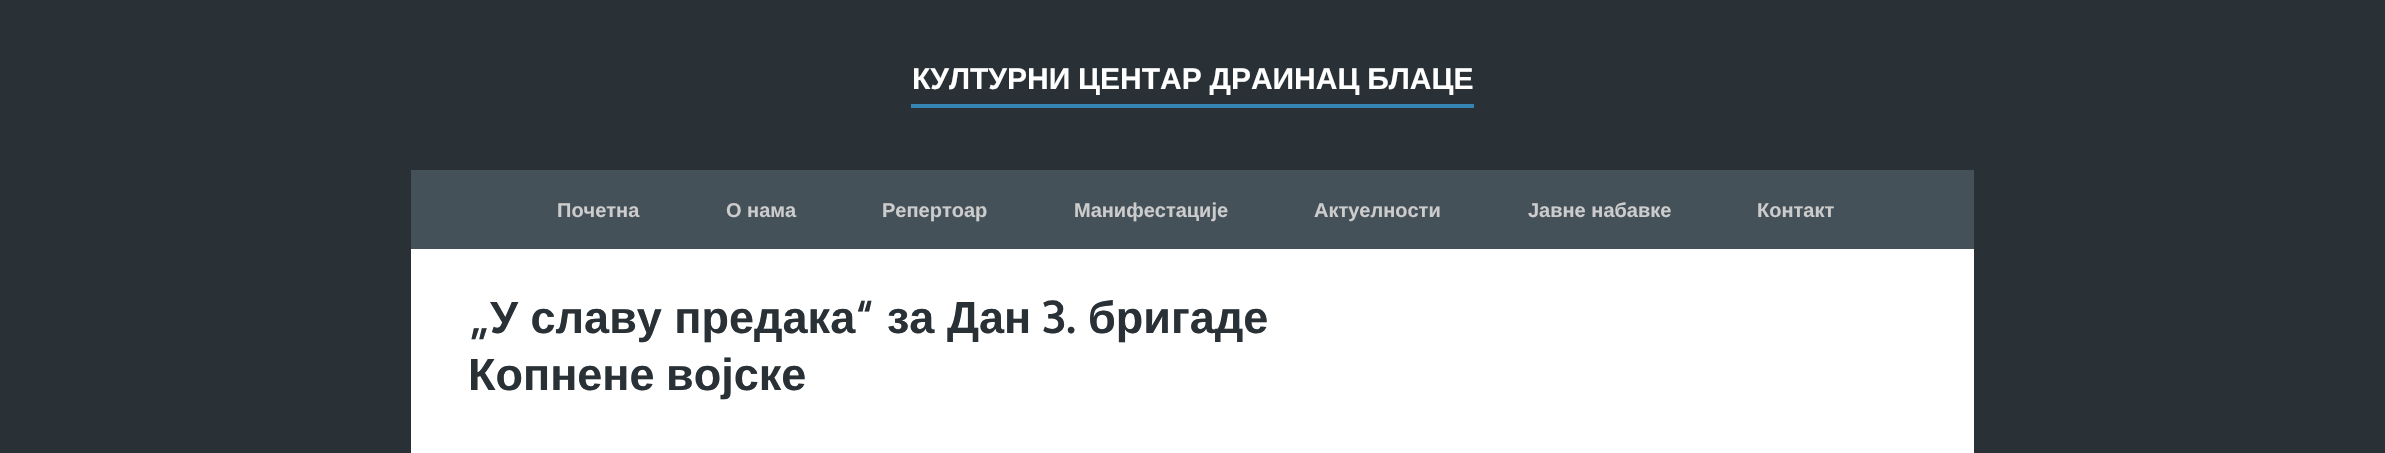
static SkFont makeFont(const char* family, int weight, float size, bool italic = false) {
  SkFontStyle style(weight, SkFontStyle::kNormal_Width,
    italic ? SkFontStyle::kItalic_Slant : SkFontStyle::kUpright_Slant);
  SkFont result(fontMgr->matchFamilyStyle(family, style), size);
  result.setSubpixel(true);
  return result;
}

static void text(SkCanvas* c, const char* s, float x, float y, const SkFont& font, SkColor color) {
  SkPaint ink(SkColor4f::FromColor(color));
  ink.setAntiAlias(true);
  c->drawString(s, x, y, font, ink);
}

static void spacedText(SkCanvas* c, const char* s, float x, float y, const SkFont& font, const SkPaint& ink, float letter, float word) {
  std::vector<SkGlyphID> glyphs(font.countText(s, strlen(s), SkTextEncoding::kUTF8));
  std::vector<float> xs(glyphs.size());
  font.textToGlyphs(s, strlen(s), SkTextEncoding::kUTF8, glyphs);
  font.getXPos(glyphs, xs, x);
  float extra = 0;
  for (size_t i = 0; i < glyphs.size(); i++) {
    xs[i] += extra;
    extra += letter + word * (glyphs[i] == font.unicharToGlyph(' '));
  }
  c->drawTextBlob(SkTextBlob::MakeFromPosHGlyphs(glyphs, xs, y, font), 0, 0, ink);
}

static void box(SkCanvas* c, float l, float t, float r, float b, SkColor color) {
  SkPaint ink(SkColor4f::FromColor(color));
  ink.setAntiAlias(true);
  c->drawRect(SkRect::MakeLTRB(l, t, r, b), ink);
}

void draw(SkCanvas* c) {
  SkPaint paint;
  paint.setAntiAlias(true);
  c->clear(0xff293136);
  box(c, 911, 104, 1474, 108, 0xff3485b4);
  SkFont face1 = makeFont("Liberation Sans", 700, 30);
  paint.setColor(0xffffffff);
  spacedText(c, "КУЛТУРНИ ЦЕНТАР ДРАИНАЦ БЛАЦЕ", 912, 89, face1, paint, 0, -0.5f);
  box(c, 411, 170, 1974, 249, 0xff455159);
  SkFont face2 = makeFont("Liberation Sans", 700, 20);
  text(c, "Почетна", 557, 217, face2, 0xffcccccc);
  text(c, "О нама", 726, 217, face2, 0xffcccccc);
  text(c, "Репертоар", 882, 217, face2, 0xffcccccc);
  text(c, "Манифестације", 1074, 217, face2, 0xffcccccc);
  text(c, "Актуелности", 1314, 217, face2, 0xffcccccc);
  text(c, "Јавне набавке", 1528, 217, face2, 0xffcccccc);
  text(c, "Контакт", 1757, 217, face2, 0xffcccccc);
  box(c, 411, 249, 1974, 453, 0xffffffff);
  SkFont face3 = makeFont("Oxygen", 700, 45);
  text(c, "„", 468, 333, face3, 0xff293136);
  SkFont face4 = makeFont("Liberation Sans", 700, 45);
  text(c, "У славу предака", 490, 333, face4, 0xff293136);
  text(c, "“", 854, 333, face3, 0xff293136);
  text(c, "за Дан", 887, 333, face4, 0xff293136);
  text(c, "3.", 1042, 333, face3, 0xff293136);
  text(c, "бригаде", 1088, 333, face4, 0xff293136);
  paint.setColor(0xff293136);
  spacedText(c, "Копнене војске", 468, 390, face4, paint, 0, -1);
}
